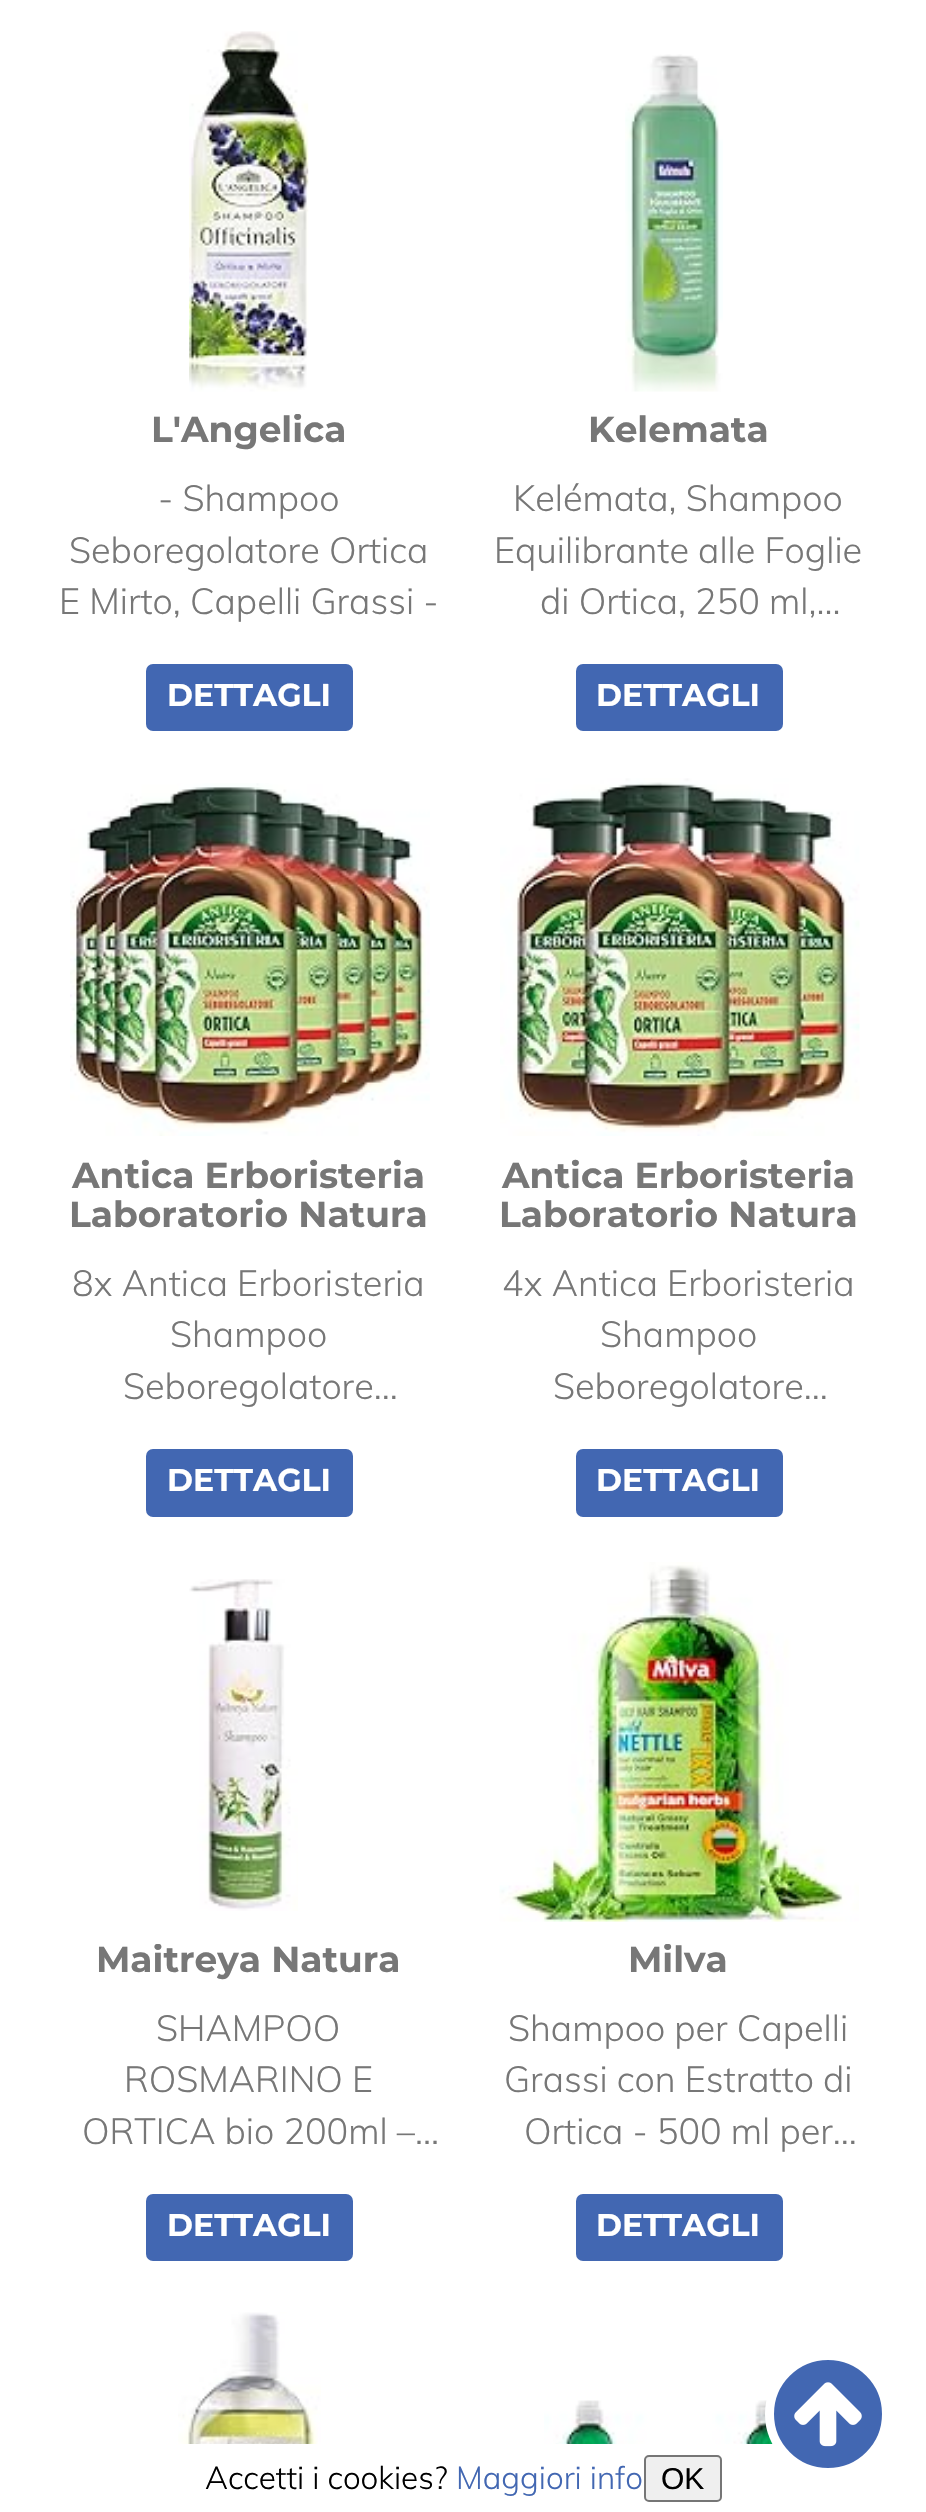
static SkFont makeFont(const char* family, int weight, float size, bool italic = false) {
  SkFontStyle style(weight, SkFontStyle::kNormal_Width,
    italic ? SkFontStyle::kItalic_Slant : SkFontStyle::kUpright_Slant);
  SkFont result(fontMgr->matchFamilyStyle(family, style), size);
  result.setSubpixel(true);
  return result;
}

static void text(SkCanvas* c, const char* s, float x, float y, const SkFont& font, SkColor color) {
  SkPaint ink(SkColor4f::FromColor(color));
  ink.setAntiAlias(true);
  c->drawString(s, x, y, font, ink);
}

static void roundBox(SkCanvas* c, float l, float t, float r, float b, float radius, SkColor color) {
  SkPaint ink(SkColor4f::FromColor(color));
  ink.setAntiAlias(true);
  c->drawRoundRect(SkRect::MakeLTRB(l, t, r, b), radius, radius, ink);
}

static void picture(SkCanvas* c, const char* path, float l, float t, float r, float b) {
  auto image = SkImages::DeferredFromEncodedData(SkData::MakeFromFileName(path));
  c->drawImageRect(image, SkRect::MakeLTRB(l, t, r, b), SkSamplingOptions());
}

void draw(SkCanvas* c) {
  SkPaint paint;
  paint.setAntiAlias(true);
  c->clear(0xffffffff);
  picture(c, "img_01.png", 189, 31, 309, 392);
  c->save();
  c->clipRect(SkRect::MakeLTRB(56, 414, 441, 452));
  SkFont face1 = makeFont("Montserrat", 700, 36);
  text(c, "L'Angelica", 151, 442, face1, 0xff777777);
  c->restore();
  SkFont face2 = makeFont("Muli", 300, 36);
  text(c, "- Shampoo", 158, 511, face2, 0xff777777);
  text(c, "Seboregolatore Ortica", 69, 563, face2, 0xff777777);
  text(c, "E Mirto, Capelli Grassi -", 59, 614, face2, 0xff777777);
  roundBox(c, 146, 664, 353, 731, 7, 0xff4267b2);
  SkFont face3 = makeFont("Montserrat", 700, 31.5f);
  text(c, "DETTAGLI", 167, 706, face3, 0xffffffff);
  picture(c, "img_02.png", 625, 54, 723, 392);
  text(c, "Kelemata", 588, 442, face1, 0xff777777);
  text(c, "Kelémata, Shampoo", 513, 511, face2, 0xff777777);
  text(c, "Equilibrante alle Foglie", 494, 563, face2, 0xff777777);
  text(c, "di Ortica, 250 ml,…", 540, 614, face2, 0xff777777);
  roundBox(c, 576, 664, 783, 731, 7, 0xff4267b2);
  text(c, "DETTAGLI", 596, 706, face3, 0xffffffff);
  picture(c, "img_03.png", 70, 783, 430, 1136);
  text(c, "Antica Erboristeria", 72, 1188, face1, 0xff777777);
  text(c, "Laboratorio Natura", 69, 1227, face1, 0xff777777);
  text(c, "8x Antica Erboristeria", 72, 1296, face2, 0xff777777);
  text(c, "Shampoo", 170, 1347, face2, 0xff777777);
  text(c, "Seboregolatore…", 123, 1399, face2, 0xff777777);
  roundBox(c, 146, 1449, 353, 1517, 7, 0xff4267b2);
  text(c, "DETTAGLI", 167, 1491, face3, 0xffffffff);
  picture(c, "img_04.png", 500, 778, 860, 1136);
  text(c, "Antica Erboristeria", 502, 1188, face1, 0xff777777);
  text(c, "Laboratorio Natura", 499, 1227, face1, 0xff777777);
  text(c, "4x Antica Erboristeria", 502, 1296, face2, 0xff777777);
  text(c, "Shampoo", 600, 1347, face2, 0xff777777);
  text(c, "Seboregolatore…", 553, 1399, face2, 0xff777777);
  roundBox(c, 576, 1449, 783, 1517, 7, 0xff4267b2);
  text(c, "DETTAGLI", 596, 1491, face3, 0xffffffff);
  picture(c, "img_05.png", 189, 1579, 298, 1911);
  c->save();
  c->clipRect(SkRect::MakeLTRB(56, 1944, 441, 1982));
  text(c, "Maitreya Natura", 96, 1972, face1, 0xff777777);
  c->restore();
  text(c, "SHAMPOO", 156, 2041, face2, 0xff777777);
  text(c, "ROSMARINO E", 124, 2092, face2, 0xff777777);
  text(c, "ORTICA bio 200ml –…", 82, 2144, face2, 0xff777777);
  roundBox(c, 146, 2194, 353, 2261, 7, 0xff4267b2);
  text(c, "DETTAGLI", 167, 2236, face3, 0xffffffff);
  picture(c, "img_06.png", 499, 1562, 859, 1922);
  c->save();
  c->clipRect(SkRect::MakeLTRB(486, 1944, 871, 1982));
  text(c, "Milva", 628, 1972, face1, 0xff777777);
  c->restore();
  text(c, "Shampoo per Capelli", 508, 2041, face2, 0xff777777);
  text(c, "Grassi con Estratto di", 504, 2092, face2, 0xff777777);
  text(c, "Ortica - 500 ml per…", 524, 2144, face2, 0xff777777);
  roundBox(c, 576, 2194, 783, 2261, 7, 0xff4267b2);
  text(c, "DETTAGLI", 596, 2236, face3, 0xffffffff);
  picture(c, "img_07.png", 178, 2312, 321, 2444);
  picture(c, "img_08.png", 544, 2400, 773, 2444);
  paint.setColor(0xff4267b2);
  c->drawCircle(828, 2414, 58.5f, paint);
  paint.setStyle(SkPaint::kStroke_Style);
  paint.setStrokeWidth(9);
  paint.setColor(0xffffffff);
  c->drawCircle(828, 2414, 58.5f, paint);
  picture(c, "img_09.png", 794, 2382, 862, 2447);
  SkFont face4 = makeFont("Muli", 300, 31.5f);
  text(c, "Accetti i cookies?", 205, 2489, face4, 0xff000000);
  text(c, "Maggiori info", 456, 2489, face4, 0xff4267b2);
  paint.setStyle(SkPaint::kFill_Style);
  paint.setColor(0xffefefef);
  c->drawRoundRect(SkRect::MakeLTRB(645, 2456, 721, 2501), 4, 4, paint);
  paint.setStyle(SkPaint::kStroke_Style);
  paint.setStrokeWidth(2);
  paint.setColor(0xff767676);
  c->drawRoundRect(SkRect::MakeLTRB(645, 2456, 721, 2501), 4, 4, paint);
  SkFont face5 = makeFont("Liberation Sans", 400, 30);
  text(c, "OK", 661, 2489, face5, 0xff000000);
}
